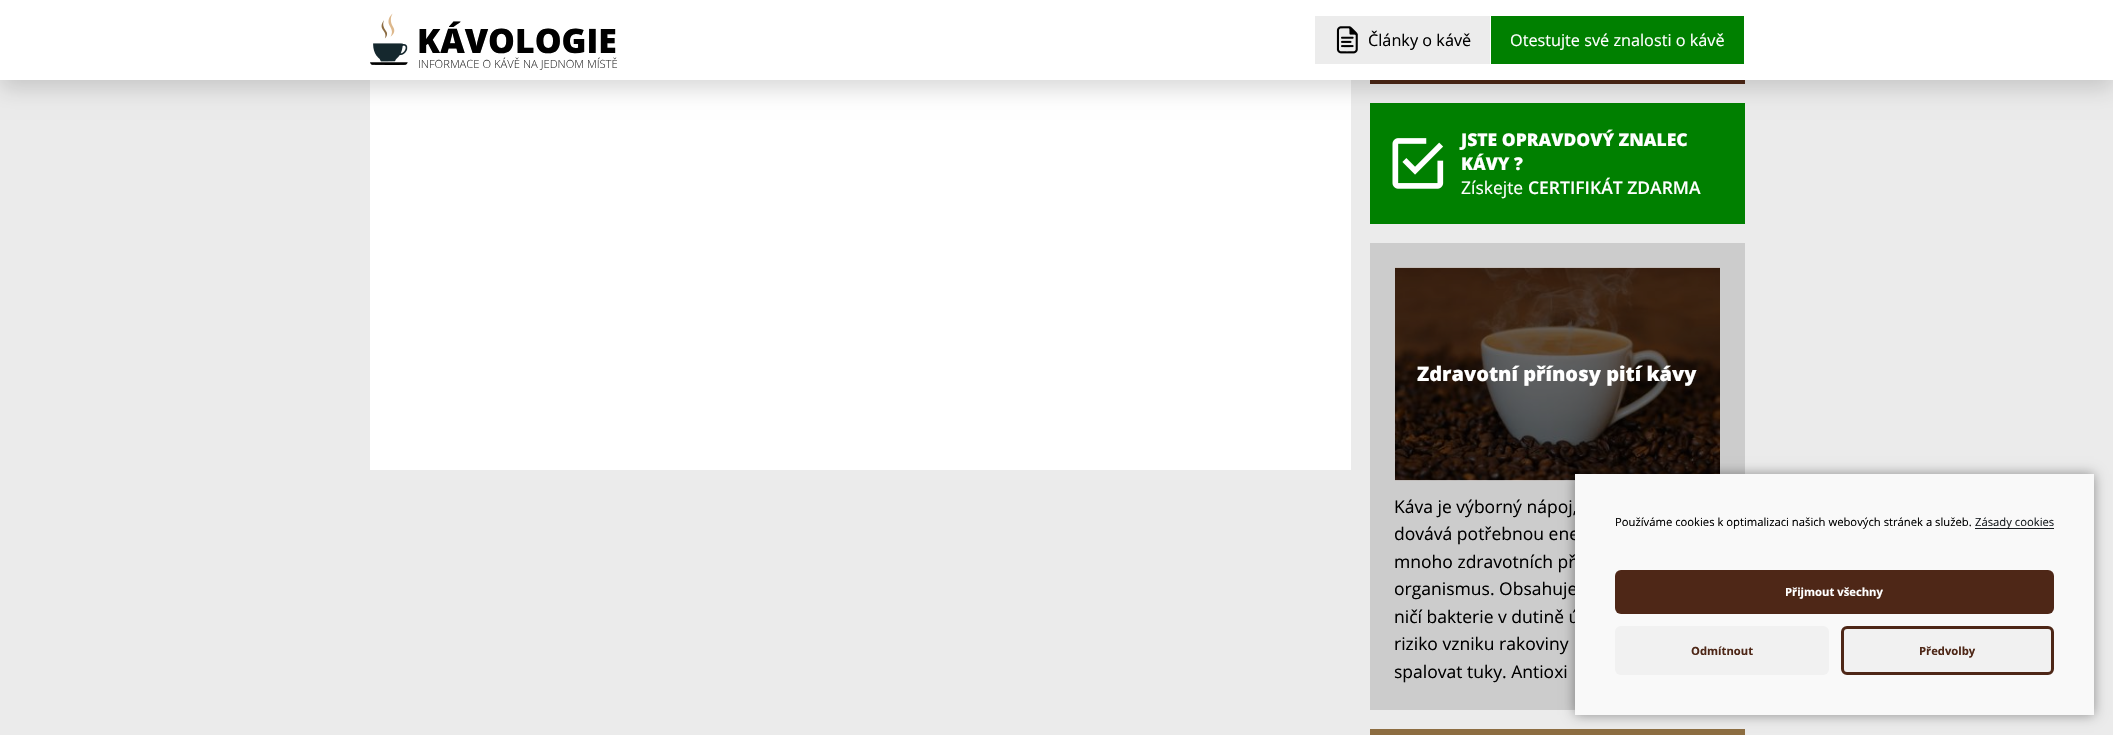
static SkFont makeFont(const char* family, int weight, float size, bool italic = false) {
  SkFontStyle style(weight, SkFontStyle::kNormal_Width,
    italic ? SkFontStyle::kItalic_Slant : SkFontStyle::kUpright_Slant);
  SkFont result(fontMgr->matchFamilyStyle(family, style), size);
  result.setSubpixel(true);
  return result;
}

static void text(SkCanvas* c, const char* s, float x, float y, const SkFont& font, SkColor color) {
  SkPaint ink(SkColor4f::FromColor(color));
  ink.setAntiAlias(true);
  c->drawString(s, x, y, font, ink);
}

static void box(SkCanvas* c, float l, float t, float r, float b, SkColor color) {
  SkPaint ink(SkColor4f::FromColor(color));
  ink.setAntiAlias(true);
  c->drawRect(SkRect::MakeLTRB(l, t, r, b), ink);
}

static void roundBox(SkCanvas* c, float l, float t, float r, float b, float radius, SkColor color) {
  SkPaint ink(SkColor4f::FromColor(color));
  ink.setAntiAlias(true);
  c->drawRoundRect(SkRect::MakeLTRB(l, t, r, b), radius, radius, ink);
}

static void picture(SkCanvas* c, const char* path, float l, float t, float r, float b) {
  auto image = SkImages::DeferredFromEncodedData(SkData::MakeFromFileName(path));
  c->drawImageRect(image, SkRect::MakeLTRB(l, t, r, b), SkSamplingOptions());
}

void draw(SkCanvas* c) {
  SkPaint paint;
  paint.setAntiAlias(true);
  c->clear(0xffebebeb);
  box(c, 370, 80, 1351, 470, 0xffffffff);
  box(c, 1370, 80, 1745, 84, 0xff4e2716);
  box(c, 1370, 103, 1745, 224, 0xff008000);
  paint.setColor(0x26000000);
  paint.setMaskFilter(SkMaskFilter::MakeBlur(kNormal_SkBlurStyle, 10.5f));
  c->drawRect(SkRect::MakeLTRB(0, 9, 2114, 89), paint);
  paint.setMaskFilter(nullptr);
  box(c, 0, 0, 2113, 80, 0xffffffff);
  picture(c, "img_01.png", 370, 13, 408, 65);
  SkFont face1 = makeFont("Open Sans", 800, 33.75f);
  text(c, "KÁVOLOGIE", 417, 53, face1, 0xff000000);
  SkFont face2 = makeFont("Open Sans", 300, 11.25f);
  text(c, "INFORMACE O KÁVĚ NA JEDNOM MÍSTĚ", 418, 68, face2, 0xff333333);
  box(c, 1315, 16, 1490, 64, 0xffececec);
  picture(c, "img_02.png", 1336, 26, 1358, 54);
  SkFont face3 = makeFont("Open Sans", 400, 16.25f);
  text(c, "Články o kávě", 1368, 46, face3, 0xff000000);
  box(c, 1491, 16, 1744, 64, 0xff008000);
  text(c, "Otestujte své znalosti o kávě", 1510, 46, face3, 0xffffffff);
  picture(c, "img_03.png", 1392, 138, 1444, 189);
  SkFont face4 = makeFont("Open Sans", 800, 17.5f);
  text(c, "JSTE OPRAVDOVÝ ZNALEC", 1461, 146, face4, 0xffffffff);
  text(c, "KÁVY ?", 1461, 170, face4, 0xffffffff);
  SkFont face5 = makeFont("Open Sans", 400, 17.5f);
  text(c, "Získejte", 1461, 194, face5, 0xffffffff);
  SkFont face6 = makeFont("Open Sans", 600, 17.5f);
  text(c, "CERTIFIKÁT ZDARMA", 1528, 194, face6, 0xffffffff);
  box(c, 1370, 243, 1745, 710, 0xffcccccc);
  box(c, 1395, 268, 1720, 480, 0xff000000);
  picture(c, "img_04.png", 1395, 267, 1720, 481);
  SkFont face7 = makeFont("Open Sans", 800, 20);
  text(c, "Zdravotní přínosy pití kávy", 1417, 381, face7, 0xffffffff);
  text(c, "Káva je výborný nápoj,", 1394, 513, face5, 0xff000000);
  text(c, "dovává potřebnou ene", 1394, 540, face5, 0xff000000);
  text(c, "mnoho zdravotních př", 1394, 568, face5, 0xff000000);
  text(c, "organismus. Obsahuje", 1394, 595, face5, 0xff000000);
  text(c, "ničí bakterie v dutině ú", 1394, 623, face5, 0xff000000);
  text(c, "riziko vzniku rakoviny", 1394, 650, face5, 0xff000000);
  text(c, "spalovat tuky. Antioxi", 1394, 678, face5, 0xff000000);
  box(c, 1370, 729, 1745, 735, 0xff8d6d41);
  paint.setColor(0x66000000);
  paint.setMaskFilter(SkMaskFilter::MakeBlur(kNormal_SkBlurStyle, 6));
  c->drawRect(SkRect::MakeLTRB(1575, 474, 2094, 715), paint);
  paint.setMaskFilter(nullptr);
  box(c, 1575, 474, 2094, 715, 0xfff9f9f9);
  SkFont face8 = makeFont("Open Sans", 400, 11.25f);
  text(c, "Používáme cookies k optimalizaci našich webových stránek a služeb.", 1615, 526, face8, 0xff000000);
  box(c, 1975, 528, 2054, 529, 0xff191e22);
  text(c, "Zásady cookies", 1975, 526, face8, 0xff191e22);
  roundBox(c, 1615, 570, 2054, 614, 6, 0xff4e2717);
  SkFont face9 = makeFont("Open Sans", 700, 11.25f);
  text(c, "Přijmout všechny", 1785, 596, face9, 0xffffffff);
  roundBox(c, 1615, 626, 1829, 675, 6, 0xfff1f1f1);
  text(c, "Odmítnout", 1691, 655, face9, 0xff4e2717);
  paint.setColor(0xfff1f1f1);
  c->drawRoundRect(SkRect::MakeLTRB(1842.5f, 627.5f, 2052.5f, 673.5f), 4.5f, 4.5f, paint);
  paint.setStyle(SkPaint::kStroke_Style);
  paint.setStrokeWidth(3);
  paint.setColor(0xff4e2717);
  c->drawRoundRect(SkRect::MakeLTRB(1842.5f, 627.5f, 2052.5f, 673.5f), 4.5f, 4.5f, paint);
  text(c, "Předvolby", 1919, 655, face9, 0xff4e2717);
}
